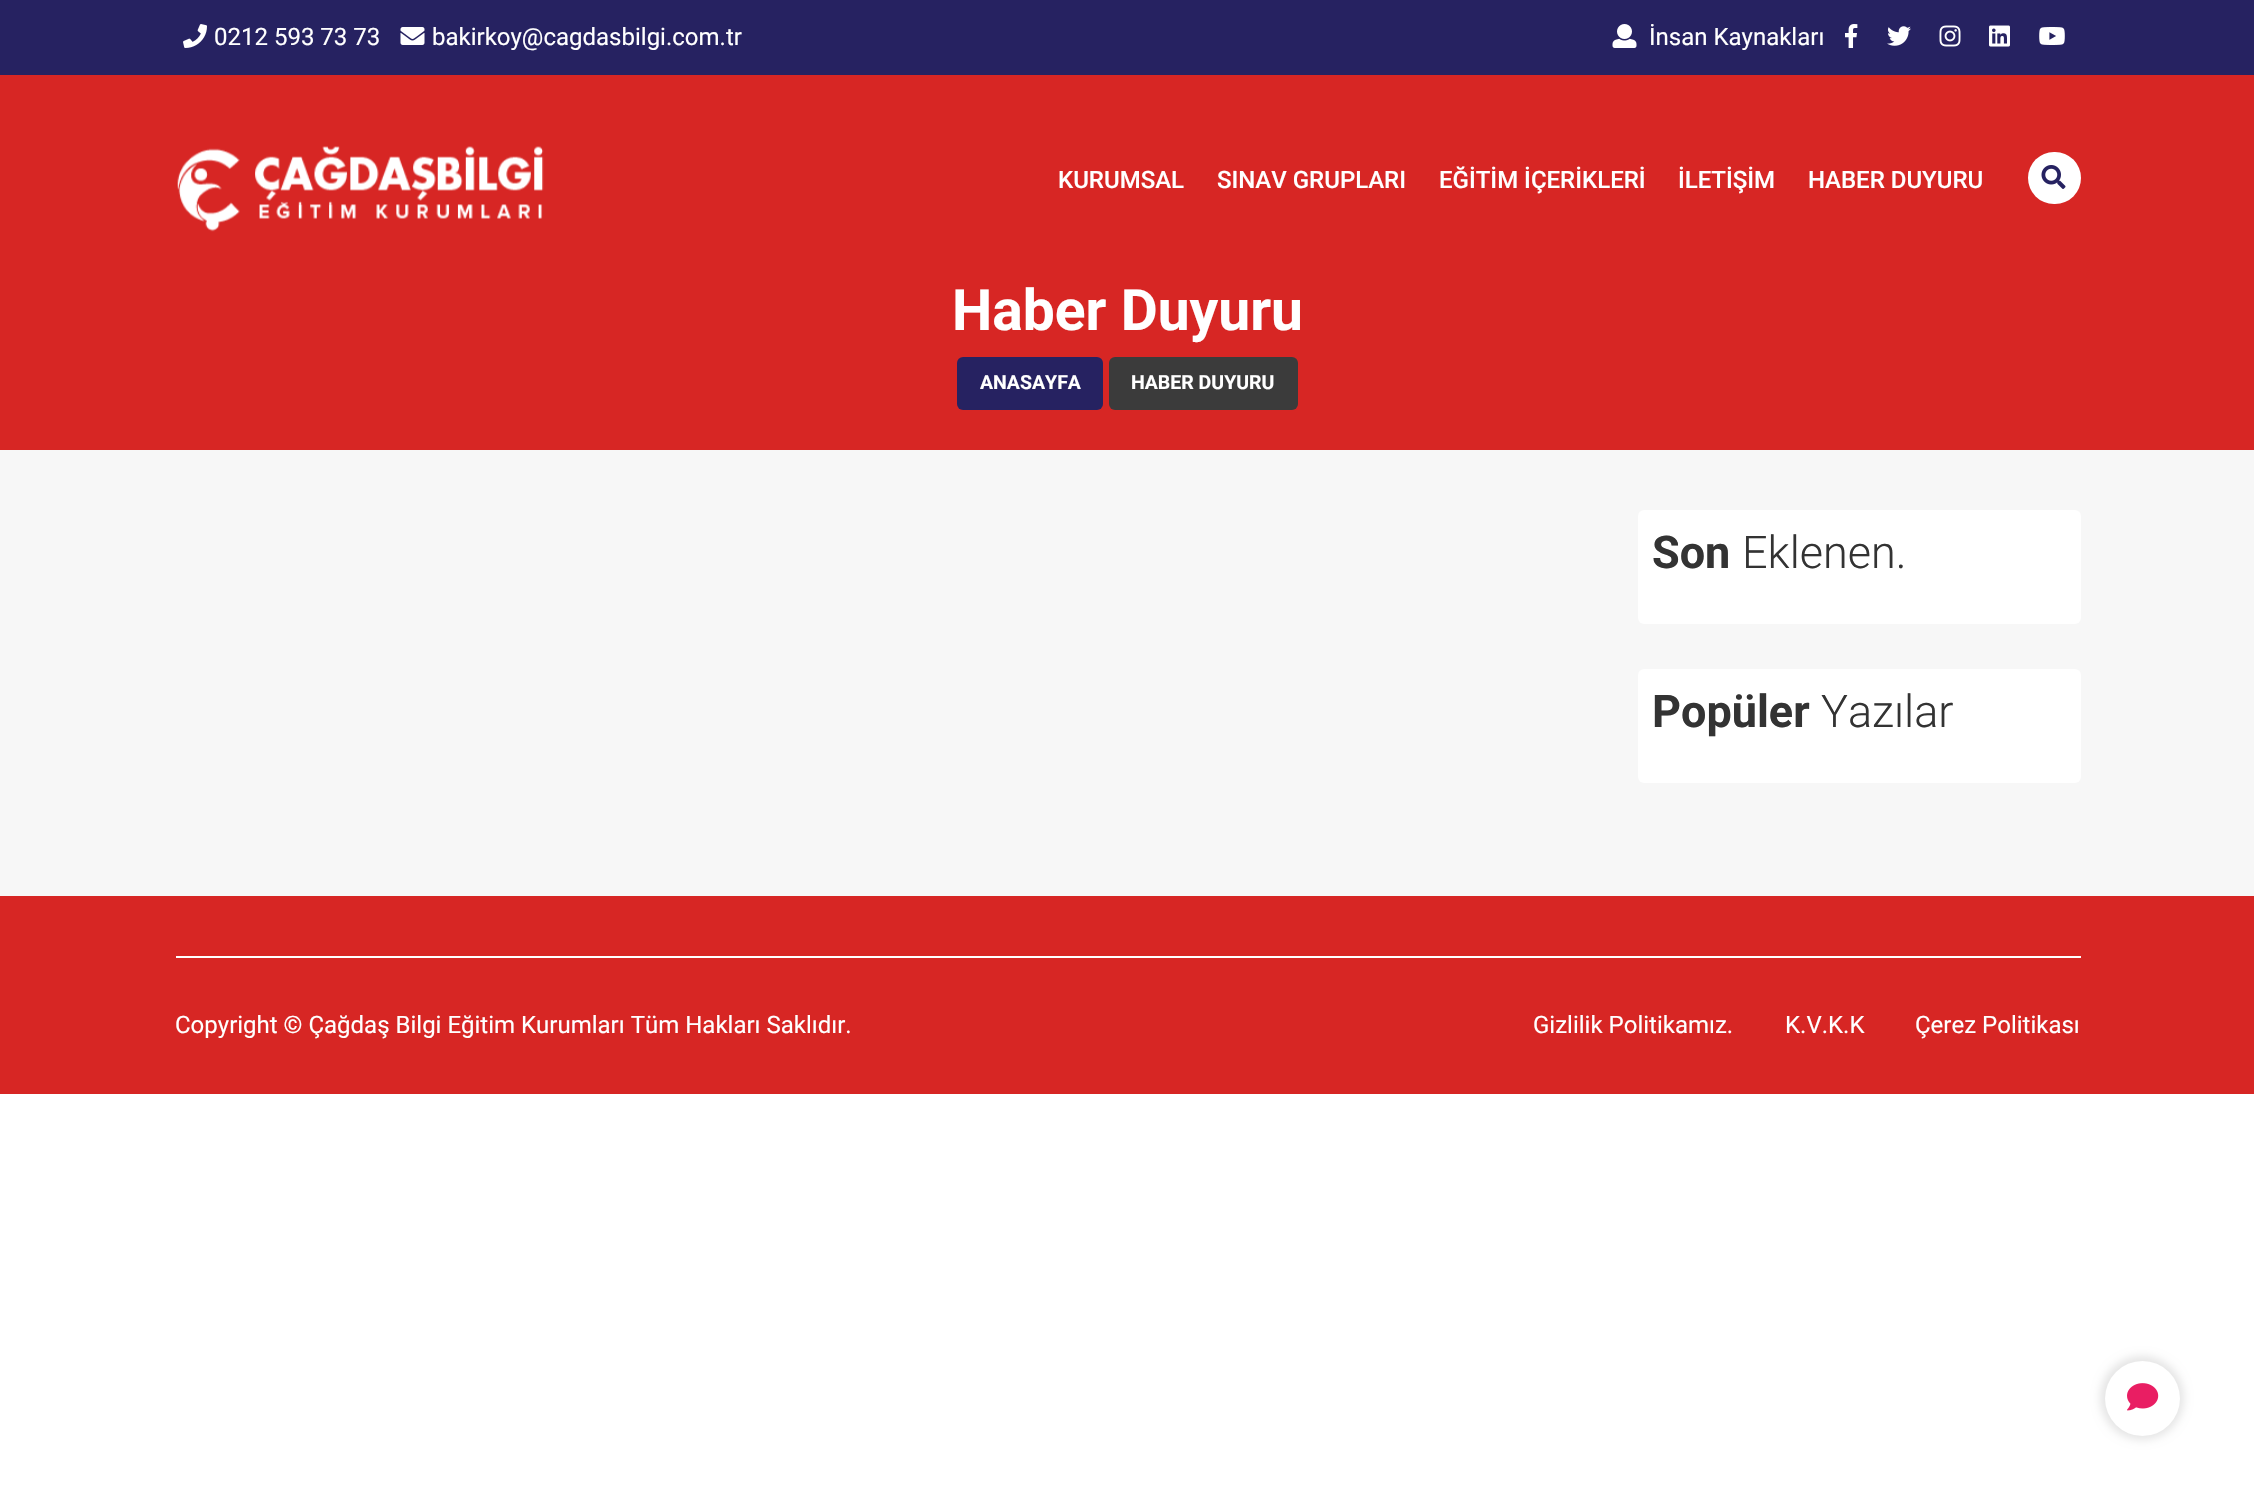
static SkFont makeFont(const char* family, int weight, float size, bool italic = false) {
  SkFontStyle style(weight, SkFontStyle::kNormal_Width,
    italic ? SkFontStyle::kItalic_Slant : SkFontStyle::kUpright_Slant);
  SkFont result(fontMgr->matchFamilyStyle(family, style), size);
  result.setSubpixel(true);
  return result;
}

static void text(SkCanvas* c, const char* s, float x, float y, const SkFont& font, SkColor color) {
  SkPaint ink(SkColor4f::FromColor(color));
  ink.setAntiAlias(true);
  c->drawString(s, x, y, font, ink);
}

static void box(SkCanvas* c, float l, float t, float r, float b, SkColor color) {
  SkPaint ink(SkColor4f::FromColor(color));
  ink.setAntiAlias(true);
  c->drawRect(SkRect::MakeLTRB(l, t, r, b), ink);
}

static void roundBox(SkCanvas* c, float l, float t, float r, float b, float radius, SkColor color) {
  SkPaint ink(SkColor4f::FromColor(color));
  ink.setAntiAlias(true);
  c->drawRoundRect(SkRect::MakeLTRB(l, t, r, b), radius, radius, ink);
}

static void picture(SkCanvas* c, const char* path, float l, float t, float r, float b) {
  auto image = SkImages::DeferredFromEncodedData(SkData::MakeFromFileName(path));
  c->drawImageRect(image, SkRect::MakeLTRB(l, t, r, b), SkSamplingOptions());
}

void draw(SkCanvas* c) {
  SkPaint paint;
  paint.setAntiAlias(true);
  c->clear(0xffffffff);
  box(c, 0, 0, 2254, 75, 0xff262261);
  picture(c, "img_01.png", 183, 24, 207, 48);
  SkFont face1 = makeFont("Roboto", 400, 24);
  text(c, "0212 593 73 73", 214, 45, face1, 0xffffffff);
  picture(c, "img_02.png", 400, 27, 425, 45);
  text(c, "bakirkoy@cagdasbilgi.com.tr", 432, 45, face1, 0xffffffff);
  picture(c, "img_03.png", 1612, 24, 1637, 48);
  text(c, "İnsan Kaynakları", 1649, 45, face1, 0xffffffff);
  picture(c, "img_04.png", 1845, 24, 1858, 48);
  picture(c, "img_05.png", 1887, 26, 1911, 46);
  picture(c, "img_06.png", 1939, 25, 1961, 47);
  picture(c, "img_07.png", 1989, 25, 2010, 47);
  picture(c, "img_08.png", 2039, 27, 2065, 45);
  box(c, 0, 75, 2254, 450, 0xffd72624);
  picture(c, "img_09.png", 177, 146, 544, 232);
  SkFont face2 = makeFont("Roboto", 500, 24);
  text(c, "KURUMSAL", 1058, 188, face2, 0xffffffff);
  text(c, "SINAV GRUPLARI", 1217, 188, face2, 0xffffffff);
  text(c, "EĞİTİM İÇERİKLERİ", 1439, 188, face2, 0xffffffff);
  text(c, "İLETİŞİM", 1678, 188, face2, 0xffffffff);
  text(c, "HABER DUYURU", 1808, 188, face2, 0xffffffff);
  roundBox(c, 2028, 152, 2081, 204, 26, 0xffffffff);
  picture(c, "img_10.png", 2041, 165, 2066, 189);
  SkFont face3 = makeFont("Roboto", 700, 57);
  text(c, "Haber Duyuru", 952, 330, face3, 0xffffffff);
  roundBox(c, 957, 357, 1103, 410, 6, 0xff262261);
  SkFont face4 = makeFont("Roboto", 700, 19.5f);
  text(c, "ANASAYFA", 980, 389, face4, 0xffffffff);
  roundBox(c, 1109, 357, 1298, 410, 6, 0xff3b3b3b);
  text(c, "HABER DUYURU", 1131, 389, face4, 0xffffffff);
  box(c, 0, 450, 2254, 896, 0xfff7f7f7);
  roundBox(c, 1638, 510, 2081, 624, 6, 0xffffffff);
  SkFont face5 = makeFont("Roboto", 700, 45);
  text(c, "Son", 1652, 568, face5, 0xff333333);
  SkFont face6 = makeFont("Roboto", 300, 45);
  text(c, "Eklenen.", 1742, 568, face6, 0xff333333);
  roundBox(c, 1638, 669, 2081, 783, 6, 0xffffffff);
  text(c, "Popüler", 1652, 727, face5, 0xff333333);
  text(c, "Yazılar", 1821, 727, face6, 0xff333333);
  box(c, 0, 896, 2254, 1094, 0xffd72624);
  box(c, 176, 956, 2081, 958, 0xffffffff);
  text(c, "Copyright © Çağdaş Bilgi Eğitim Kurumları Tüm Hakları Saklıdır.", 175, 1033, face1, 0xffffffff);
  text(c, "Gizlilik Politikamız.", 1533, 1033, face1, 0xffffffff);
  text(c, "K.V.K.K", 1785, 1033, face1, 0xffffffff);
  text(c, "Çerez Politikası", 1915, 1033, face1, 0xffffffff);
  paint.setColor(0x1a000000);
  paint.setMaskFilter(SkMaskFilter::MakeBlur(kNormal_SkBlurStyle, 4));
  c->drawRoundRect(SkRect::MakeLTRB(2100, 1356, 2184, 1440), 42, 42, paint);
  paint.setMaskFilter(nullptr);
  paint.setColor(0xffffffff);
  c->drawCircle(2142.5f, 1398.5f, 37.5f, paint);
  picture(c, "img_11.png", 2127, 1383, 2159, 1411);
}
